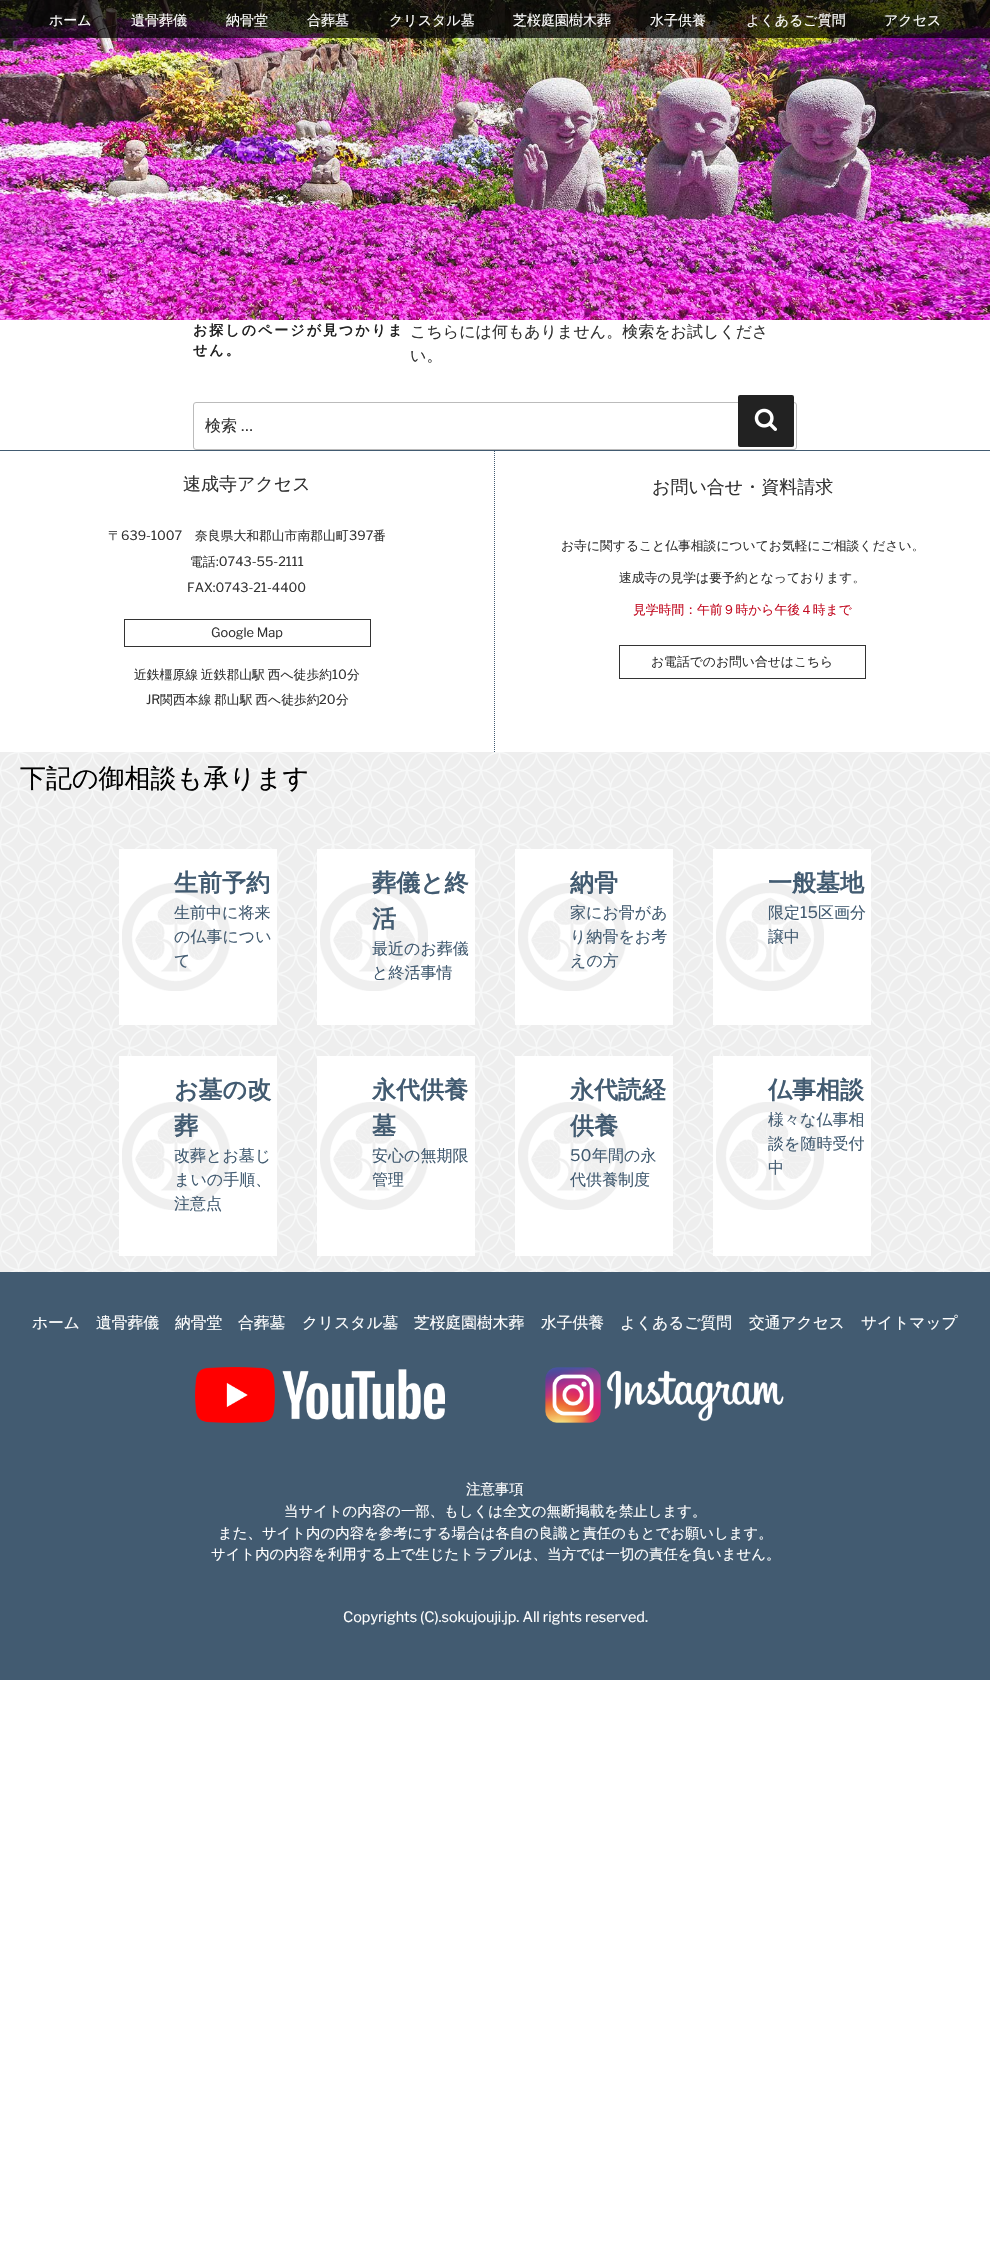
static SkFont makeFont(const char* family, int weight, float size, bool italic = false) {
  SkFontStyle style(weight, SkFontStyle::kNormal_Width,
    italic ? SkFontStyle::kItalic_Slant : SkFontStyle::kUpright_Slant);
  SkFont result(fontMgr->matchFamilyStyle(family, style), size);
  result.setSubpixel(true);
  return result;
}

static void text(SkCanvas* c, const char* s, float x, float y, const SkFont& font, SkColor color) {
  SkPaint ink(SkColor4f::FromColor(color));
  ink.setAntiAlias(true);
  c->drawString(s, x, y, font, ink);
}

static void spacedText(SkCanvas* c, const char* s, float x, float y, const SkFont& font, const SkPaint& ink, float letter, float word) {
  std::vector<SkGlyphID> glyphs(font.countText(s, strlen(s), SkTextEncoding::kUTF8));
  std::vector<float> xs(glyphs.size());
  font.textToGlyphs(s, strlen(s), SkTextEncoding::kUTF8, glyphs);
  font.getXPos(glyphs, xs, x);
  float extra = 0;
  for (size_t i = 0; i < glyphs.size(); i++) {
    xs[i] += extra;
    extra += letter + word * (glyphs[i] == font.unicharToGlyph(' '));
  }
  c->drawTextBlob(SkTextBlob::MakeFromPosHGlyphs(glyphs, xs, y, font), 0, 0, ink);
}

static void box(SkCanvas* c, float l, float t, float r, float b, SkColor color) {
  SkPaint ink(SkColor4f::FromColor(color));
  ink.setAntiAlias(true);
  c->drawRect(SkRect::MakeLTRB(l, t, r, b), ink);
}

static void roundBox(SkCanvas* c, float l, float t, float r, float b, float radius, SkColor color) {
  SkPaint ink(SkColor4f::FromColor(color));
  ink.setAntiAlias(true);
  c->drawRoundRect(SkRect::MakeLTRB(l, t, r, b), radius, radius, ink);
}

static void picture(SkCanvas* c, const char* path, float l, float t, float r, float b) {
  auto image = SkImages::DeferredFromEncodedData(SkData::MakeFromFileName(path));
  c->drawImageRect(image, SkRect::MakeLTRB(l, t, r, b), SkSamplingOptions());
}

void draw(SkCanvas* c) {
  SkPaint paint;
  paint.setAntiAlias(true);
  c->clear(0xffffffff);
  picture(c, "img_01.png", 0, 0, 990, 320);
  box(c, 0, 0, 990, 38, 0xb3000000);
  SkFont face1 = makeFont("WenQuanYi Zen Hei", 500, 14);
  text(c, "ホーム", 49, 25, face1, 0xffffffff);
  text(c, "遺骨葬儀", 131, 25, face1, 0xffffffff);
  text(c, "納骨堂", 226, 25, face1, 0xffffffff);
  text(c, "合葬墓", 307, 25, face1, 0xffffffff);
  text(c, "クリスタル墓", 389, 25, face1, 0xffffffff);
  text(c, "芝桜庭園樹木葬", 513, 25, face1, 0xffffffff);
  text(c, "水子供養", 650, 25, face1, 0xffffffff);
  text(c, "よくあるご質問", 746, 25, face1, 0xffffffff);
  text(c, "アクセス", 884, 25, face1, 0xffffffff);
  SkFont face2 = makeFont("WenQuanYi Zen Hei", 700, 14);
  paint.setColor(0xff222222);
  spacedText(c, "お探しのページが見つかりま", 193, 335, face2, paint, 2, 0);
  spacedText(c, "せん。", 193, 355, face2, paint, 2, 0);
  SkFont face3 = makeFont("WenQuanYi Zen Hei", 500, 16);
  text(c, "こちらには何もありません。検索をお試しくださ", 410, 337, face3, 0xff333333);
  text(c, "い。", 410, 361, face3, 0xff333333);
  paint.setStyle(SkPaint::kStroke_Style);
  paint.setStrokeWidth(1);
  paint.setColor(0xffbbbbbb);
  c->drawRoundRect(SkRect::MakeLTRB(193.5f, 402.5f, 796.5f, 449.5f), 2.5f, 2.5f, paint);
  text(c, "検索", 205, 431, face3, 0xff333333);
  SkFont face4 = makeFont("Libre Franklin", 400, 16);
  text(c, "…", 241, 431, face4, 0xff333333);
  roundBox(c, 738, 395, 794, 447, 2, 0xff222222);
  picture(c, "img_02.png", 754, 408, 777, 431);
  box(c, 0, 450, 990, 451, 0xff425b71);
  paint.setColor(0xff425b71);
  paint.setPathEffect(SkDashPathEffect::Make({{1, 1}}, 0));
  c->drawPath(SkPathBuilder().moveTo(494.5f, 451).lineTo(494.5f, 752).detach(), paint);
  paint.setPathEffect(nullptr);
  SkFont face5 = makeFont("WenQuanYi Zen Hei", 500, 18);
  text(c, "速成寺アクセス", 183, 490, face5, 0xff333333);
  SkFont face6 = makeFont("WenQuanYi Zen Hei", 500, 12.8f);
  text(c, "〒", 108, 540, face6, 0xff333333);
  SkFont face7 = makeFont("Libre Franklin", 400, 12.8f);
  text(c, "639-1007", 121, 540, face7, 0xff333333);
  text(c, "奈良県大和郡山市南郡山町", 195, 540, face6, 0xff333333);
  text(c, "397", 349, 540, face7, 0xff333333);
  text(c, "番", 373, 540, face6, 0xff333333);
  text(c, "電話", 190, 566, face6, 0xff333333);
  text(c, ":0743-55-2111", 216, 566, face7, 0xff333333);
  text(c, "FAX:0743-21-4400", 187, 592, face7, 0xff333333);
  paint.setColor(0xff333333);
  c->drawRect(SkRect::MakeLTRB(124.5f, 619.5f, 370.5f, 646.5f), paint);
  text(c, "Google Map", 211, 637, face7, 0xff333333);
  paint.setStyle(SkPaint::kFill_Style);
  spacedText(c, "近鉄橿原線 近鉄郡山駅 西へ徒歩約", 134, 679, face6, paint, 0, -1);
  text(c, "10", 332, 679, face7, 0xff333333);
  text(c, "分", 347, 679, face6, 0xff333333);
  text(c, "JR", 146, 704, face7, 0xff333333);
  spacedText(c, "関西本線 郡山駅 西へ徒歩約", 160, 704, face6, paint, 0, -1);
  text(c, "20", 319, 704, face7, 0xff333333);
  text(c, "分", 336, 704, face6, 0xff333333);
  text(c, "お問い合せ・資料請求", 652, 493, face5, 0xff333333);
  text(c, "お寺に関すること仏事相談についてお気軽にご相談ください。", 561, 550, face6, 0xff333333);
  text(c, "速成寺の見学は要予約となっております。", 619, 582, face6, 0xff333333);
  text(c, "見学時間：午前９時から午後４時まで", 633, 614, face6, 0xffc30d23);
  paint.setStyle(SkPaint::kStroke_Style);
  c->drawRect(SkRect::MakeLTRB(619.5f, 645.5f, 865.5f, 678.5f), paint);
  text(c, "お電話でのお問い合せはこちら", 651, 666, face6, 0xff333333);
  picture(c, "img_03.png", 0, 752, 990, 1272);
  SkFont face8 = makeFont("WenQuanYi Zen Hei", 500, 26);
  text(c, "下記の御相談も承ります", 20, 787, face8, 0xff000000);
  box(c, 119, 849, 277, 1025, 0xffffffff);
  picture(c, "img_04.png", 122, 883, 230, 991);
  SkFont face9 = makeFont("WenQuanYi Zen Hei", 700, 24);
  text(c, "生前予約", 174, 891, face9, 0xff425b71);
  text(c, "生前中に将来", 174, 918, face3, 0xff425b71);
  text(c, "の仏事につい", 174, 942, face3, 0xff425b71);
  text(c, "て", 174, 966, face3, 0xff425b71);
  box(c, 317, 849, 475, 1025, 0xffffffff);
  picture(c, "img_04.png", 320, 883, 428, 991);
  text(c, "葬儀と終", 372, 891, face9, 0xff425b71);
  text(c, "活", 372, 927, face9, 0xff425b71);
  text(c, "最近のお葬儀", 372, 954, face3, 0xff425b71);
  text(c, "と終活事情", 372, 978, face3, 0xff425b71);
  box(c, 515, 849, 673, 1025, 0xffffffff);
  picture(c, "img_04.png", 518, 883, 626, 991);
  text(c, "納骨", 570, 891, face9, 0xff425b71);
  text(c, "家にお骨があ", 570, 918, face3, 0xff425b71);
  text(c, "り納骨をお考", 570, 942, face3, 0xff425b71);
  text(c, "えの方", 570, 966, face3, 0xff425b71);
  box(c, 713, 849, 871, 1025, 0xffffffff);
  picture(c, "img_04.png", 716, 883, 824, 991);
  text(c, "一般墓地", 768, 891, face9, 0xff425b71);
  text(c, "限定", 768, 918, face3, 0xff425b71);
  text(c, "15", 800, 918, face4, 0xff425b71);
  text(c, "区画分", 818, 918, face3, 0xff425b71);
  text(c, "譲中", 768, 942, face3, 0xff425b71);
  box(c, 119, 1056, 277, 1256, 0xffffffff);
  picture(c, "img_04.png", 122, 1102, 230, 1210);
  text(c, "お墓の改", 174, 1098, face9, 0xff425b71);
  text(c, "葬", 174, 1134, face9, 0xff425b71);
  text(c, "改葬とお墓じ", 174, 1161, face3, 0xff425b71);
  text(c, "まいの手順、", 174, 1185, face3, 0xff425b71);
  text(c, "注意点", 174, 1209, face3, 0xff425b71);
  box(c, 317, 1056, 475, 1256, 0xffffffff);
  picture(c, "img_04.png", 320, 1102, 428, 1210);
  text(c, "永代供養", 372, 1098, face9, 0xff425b71);
  text(c, "墓", 372, 1134, face9, 0xff425b71);
  text(c, "安心の無期限", 372, 1161, face3, 0xff425b71);
  text(c, "管理", 372, 1185, face3, 0xff425b71);
  box(c, 515, 1056, 673, 1256, 0xffffffff);
  picture(c, "img_04.png", 518, 1102, 626, 1210);
  text(c, "永代読経", 570, 1098, face9, 0xff425b71);
  text(c, "供養", 570, 1134, face9, 0xff425b71);
  text(c, "50", 570, 1161, face4, 0xff425b71);
  text(c, "年間の永", 592, 1161, face3, 0xff425b71);
  text(c, "代供養制度", 570, 1185, face3, 0xff425b71);
  box(c, 713, 1056, 871, 1256, 0xffffffff);
  picture(c, "img_04.png", 716, 1102, 824, 1210);
  text(c, "仏事相談", 768, 1098, face9, 0xff425b71);
  text(c, "様々な仏事相", 768, 1125, face3, 0xff425b71);
  text(c, "談を随時受付", 768, 1149, face3, 0xff425b71);
  text(c, "中", 768, 1173, face3, 0xff425b71);
  box(c, 0, 1272, 990, 1680, 0xff425b71);
  SkFont face10 = makeFont("WenQuanYi Zen Hei", 500, 15.75f);
  text(c, "ホーム", 32, 1328, face10, 0xffffffff);
  text(c, "遺骨葬儀", 96, 1328, face10, 0xffffffff);
  text(c, "納骨堂", 175, 1328, face10, 0xffffffff);
  text(c, "合葬墓", 238, 1328, face10, 0xffffffff);
  text(c, "クリスタル墓", 302, 1328, face10, 0xffffffff);
  text(c, "芝桜庭園樹木葬", 414, 1328, face10, 0xffffffff);
  text(c, "水子供養", 541, 1328, face10, 0xffffffff);
  text(c, "よくあるご質問", 620, 1328, face10, 0xffffffff);
  text(c, "交通アクセス", 749, 1328, face10, 0xffffffff);
  text(c, "サイトマップ", 861, 1328, face10, 0xffffffff);
  picture(c, "img_05.png", 195, 1367, 445, 1423);
  picture(c, "img_06.png", 545, 1367, 784, 1423);
  SkFont face11 = makeFont("WenQuanYi Zen Hei", 500, 14.4f);
  text(c, "注意事項", 466, 1494, face11, 0xffffffff);
  text(c, "当サイトの内容の一部、もしくは全文の無断掲載を禁止します。", 284, 1516, face11, 0xffffffff);
  text(c, "また、サイト内の内容を参考にする場合は各自の良識と責任のもとでお願いします。", 218, 1538, face11, 0xffffffff);
  text(c, "サイト内の内容を利用する上で生じたトラブルは、当方では一切の責任を負いません。", 211, 1559, face11, 0xffffffff);
  SkFont face12 = makeFont("Libre Franklin", 400, 14.4f);
  text(c, "Copyrights (C).sokujouji.jp. All rights reserved.", 343, 1622, face12, 0xffffffff);
}
